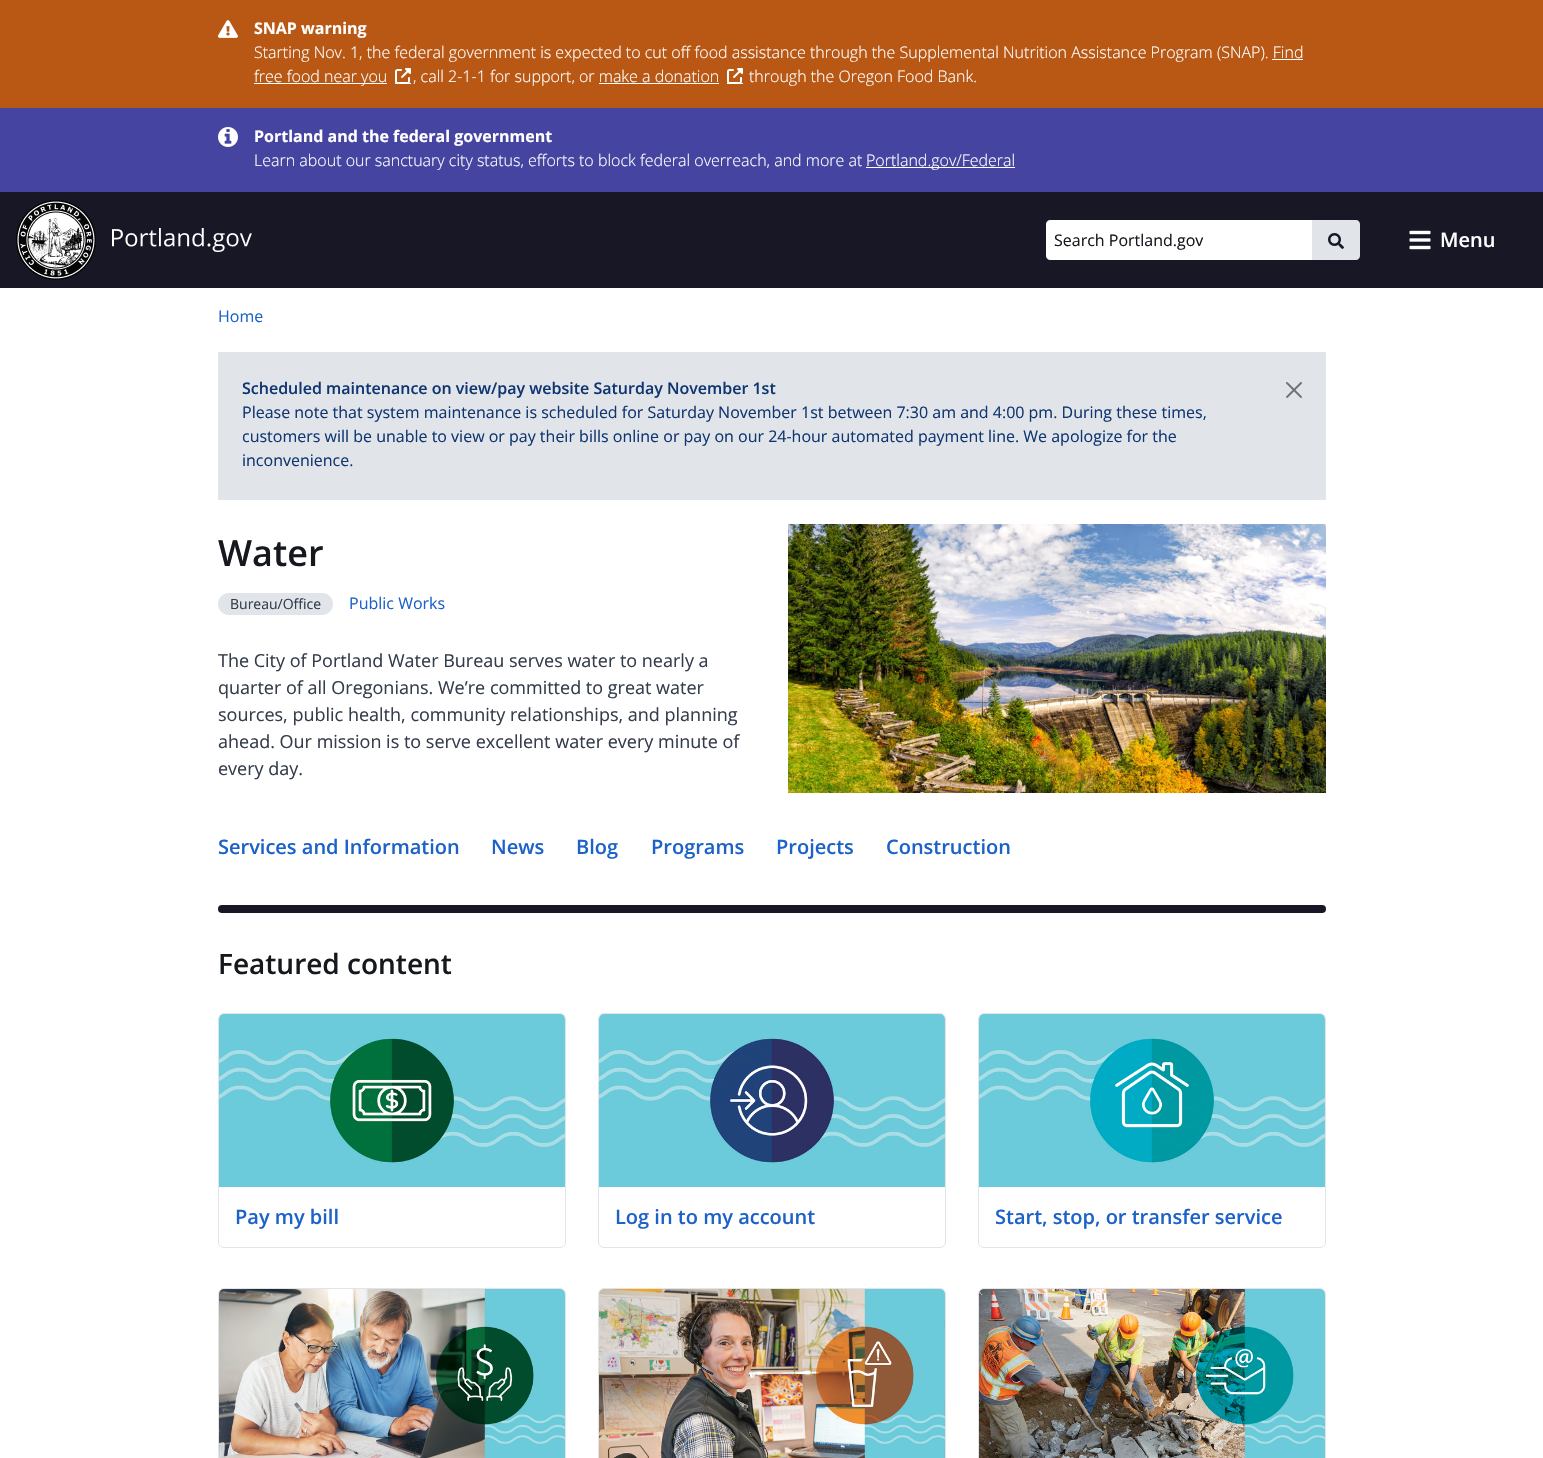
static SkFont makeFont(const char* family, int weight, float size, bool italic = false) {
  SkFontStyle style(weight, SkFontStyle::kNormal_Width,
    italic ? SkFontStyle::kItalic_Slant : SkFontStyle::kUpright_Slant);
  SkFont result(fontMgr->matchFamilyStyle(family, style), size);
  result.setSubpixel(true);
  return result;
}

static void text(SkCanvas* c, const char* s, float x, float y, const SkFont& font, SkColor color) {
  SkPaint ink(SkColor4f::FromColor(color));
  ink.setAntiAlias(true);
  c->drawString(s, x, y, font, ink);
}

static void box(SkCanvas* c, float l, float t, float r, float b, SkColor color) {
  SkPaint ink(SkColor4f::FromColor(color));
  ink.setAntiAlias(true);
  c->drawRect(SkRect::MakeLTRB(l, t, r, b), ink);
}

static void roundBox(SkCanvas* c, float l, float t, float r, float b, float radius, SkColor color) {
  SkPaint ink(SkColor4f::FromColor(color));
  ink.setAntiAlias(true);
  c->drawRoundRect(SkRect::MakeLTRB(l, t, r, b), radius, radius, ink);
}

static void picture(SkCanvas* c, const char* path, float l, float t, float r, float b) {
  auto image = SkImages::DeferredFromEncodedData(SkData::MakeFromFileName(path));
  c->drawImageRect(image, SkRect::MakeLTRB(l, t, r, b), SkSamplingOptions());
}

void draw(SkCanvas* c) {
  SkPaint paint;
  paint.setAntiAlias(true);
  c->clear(0xffffffff);
  box(c, 0, 0, 1543, 108, 0xffb85814);
  picture(c, "img_01.png", 218, 20, 238, 38);
  SkFont face1 = makeFont("Open Sans", 700, 16);
  text(c, "SNAP warning", 254, 34, face1, 0xffffffff);
  SkFont face2 = makeFont("Open Sans", 300, 16);
  text(c, "Starting Nov. 1, the federal government is expected to cut off food assistance through the Supplemental Nutrition Assistance Program (SNAP). Find", 254, 58, face2, 0xffffffff);
  box(c, 1272, 59, 1303, 60, 0xffffffff);
  box(c, 254, 83, 387, 84, 0xffffffff);
  text(c, "free food near you", 254, 82, face2, 0xffffffff);
  picture(c, "img_02.png", 395, 68, 411, 83);
  text(c, ", call 2-1-1 for support, or make a donation", 413, 82, face2, 0xffffffff);
  box(c, 395, 83, 411, 84, 0xffffffff);
  box(c, 599, 83, 719, 84, 0xffffffff);
  picture(c, "img_02.png", 727, 68, 743, 83);
  text(c, "through the Oregon Food Bank.", 749, 82, face2, 0xffffffff);
  box(c, 727, 83, 743, 84, 0xffffffff);
  box(c, 0, 108, 1543, 192, 0xff4545a1);
  picture(c, "img_03.png", 218, 127, 238, 147);
  text(c, "Portland and the federal government", 254, 142, face1, 0xffffffff);
  text(c, "Learn about our sanctuary city status, efforts to block federal overreach, and more at", 254, 166, face2, 0xffffffff);
  box(c, 866, 167, 1015, 168, 0xffffffff);
  text(c, "Portland.gov/Federal", 866, 166, face2, 0xffffffff);
  box(c, 0, 192, 1543, 288, 0xff171726);
  picture(c, "img_04.png", 16, 200, 252, 280);
  paint.setColor(0xffffffff);
  c->drawPath(SkPathBuilder().moveTo(1050, 220).lineTo(1312, 220).lineTo(1312, 260).lineTo(1050, 260).cubicTo(1048, 260, 1046, 258, 1046, 256).lineTo(1046, 224).cubicTo(1046, 222, 1048, 220, 1050, 220).close().detach(), paint);
  SkFont face3 = makeFont("Open Sans", 400, 16);
  text(c, "Search Portland.gov", 1054, 246, face3, 0xff15191e);
  paint.setColor(0xffe1e5ea);
  c->drawPath(SkPathBuilder().moveTo(1312, 220).lineTo(1356, 220).cubicTo(1358, 220, 1360, 222, 1360, 224).lineTo(1360, 256).cubicTo(1360, 258, 1358, 260, 1356, 260).lineTo(1312, 260).close().detach(), paint);
  picture(c, "img_05.png", 1328, 233, 1344, 249);
  picture(c, "img_06.png", 1409, 230, 1431, 250);
  SkFont face4 = makeFont("Open Sans", 600, 20);
  text(c, "Menu", 1440, 247, face4, 0xffffffff);
  text(c, "Home", 218, 322, face3, 0xff1d62c9);
  box(c, 218, 352, 1326, 500, 0xffe1e5ea);
  SkFont face5 = makeFont("Open Sans", 600, 16);
  text(c, "Scheduled maintenance on view/pay website Saturday November 1st", 242, 394, face5, 0xff103670);
  picture(c, "img_07.png", 1286, 382, 1302, 398);
  text(c, "Please note that system maintenance is scheduled for Saturday November 1st between 7:30 am and 4:00 pm. During these times,", 242, 418, face3, 0xff103670);
  text(c, "customers will be unable to view or pay their bills online or pay on our 24-hour automated payment line. We apologize for the", 242, 442, face3, 0xff103670);
  text(c, "inconvenience.", 242, 466, face3, 0xff103670);
  SkFont face6 = makeFont("Open Sans", 600, 36);
  text(c, "Water", 218, 566, face6, 0xff15191e);
  roundBox(c, 218, 593, 333, 615, 11, 0xffe1e5ea);
  SkFont face7 = makeFont("Open Sans", 400, 14);
  text(c, "Bureau/Office", 230, 609, face7, 0xff343d4b);
  text(c, "Public Works", 349, 609, face3, 0xff1d62c9);
  SkFont face8 = makeFont("Open Sans", 400, 18);
  text(c, "The City of Portland Water Bureau serves water to nearly a", 218, 667, face8, 0xff343d4b);
  text(c, "quarter of all Oregonians. We’re committed to great water", 218, 694, face8, 0xff343d4b);
  text(c, "sources, public health, community relationships, and planning", 218, 721, face8, 0xff343d4b);
  text(c, "ahead. Our mission is to serve excellent water every minute of", 218, 748, face8, 0xff343d4b);
  text(c, "every day.", 218, 775, face8, 0xff343d4b);
  picture(c, "img_08.png", 788, 524, 1326, 793);
  text(c, "Services and Information", 218, 854, face4, 0xff1d62c9);
  text(c, "News", 491, 854, face4, 0xff1d62c9);
  text(c, "Blog", 576, 854, face4, 0xff1d62c9);
  text(c, "Programs", 651, 854, face4, 0xff1d62c9);
  text(c, "Projects", 776, 854, face4, 0xff1d62c9);
  text(c, "Construction", 886, 854, face4, 0xff1d62c9);
  roundBox(c, 218, 905, 1326, 913, 4, 0xff171726);
  SkFont face9 = makeFont("Open Sans", 600, 28);
  text(c, "Featured content", 218, 974, face9, 0xff15191e);
  paint.setStyle(SkPaint::kStroke_Style);
  paint.setStrokeWidth(1);
  c->drawRoundRect(SkRect::MakeLTRB(218.5f, 1013.5f, 565.5f, 1247.5f), 5.5f, 5.5f, paint);
  picture(c, "img_09.png", 219, 1014, 565, 1187);
  text(c, "Pay my bill", 235, 1224, face4, 0xff1d62c9);
  c->drawRoundRect(SkRect::MakeLTRB(598.5f, 1013.5f, 945.5f, 1247.5f), 5.5f, 5.5f, paint);
  picture(c, "img_10.png", 599, 1014, 945, 1187);
  text(c, "Log in to my account", 615, 1224, face4, 0xff1d62c9);
  c->drawRoundRect(SkRect::MakeLTRB(978.5f, 1013.5f, 1325.5f, 1247.5f), 5.5f, 5.5f, paint);
  picture(c, "img_11.png", 979, 1014, 1325, 1187);
  text(c, "Start, stop, or transfer service", 995, 1224, face4, 0xff1d62c9);
  c->drawRoundRect(SkRect::MakeLTRB(218.5f, 1288.5f, 565.5f, 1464.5f), 5.5f, 5.5f, paint);
  picture(c, "img_12.png", 219, 1289, 565, 1458);
  c->drawRoundRect(SkRect::MakeLTRB(598.5f, 1288.5f, 945.5f, 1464.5f), 5.5f, 5.5f, paint);
  picture(c, "img_13.png", 599, 1289, 945, 1458);
  c->drawRoundRect(SkRect::MakeLTRB(978.5f, 1288.5f, 1325.5f, 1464.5f), 5.5f, 5.5f, paint);
  picture(c, "img_14.png", 979, 1289, 1325, 1458);
}
